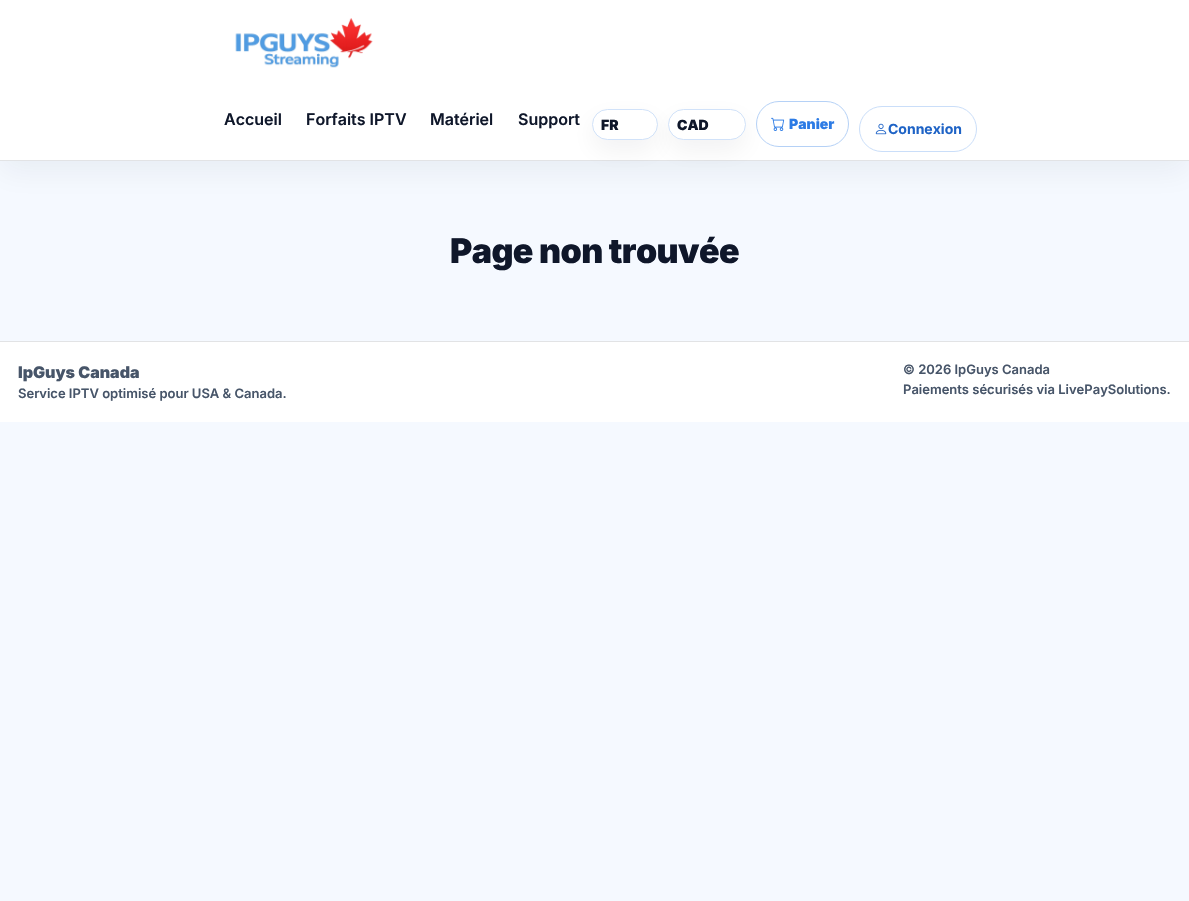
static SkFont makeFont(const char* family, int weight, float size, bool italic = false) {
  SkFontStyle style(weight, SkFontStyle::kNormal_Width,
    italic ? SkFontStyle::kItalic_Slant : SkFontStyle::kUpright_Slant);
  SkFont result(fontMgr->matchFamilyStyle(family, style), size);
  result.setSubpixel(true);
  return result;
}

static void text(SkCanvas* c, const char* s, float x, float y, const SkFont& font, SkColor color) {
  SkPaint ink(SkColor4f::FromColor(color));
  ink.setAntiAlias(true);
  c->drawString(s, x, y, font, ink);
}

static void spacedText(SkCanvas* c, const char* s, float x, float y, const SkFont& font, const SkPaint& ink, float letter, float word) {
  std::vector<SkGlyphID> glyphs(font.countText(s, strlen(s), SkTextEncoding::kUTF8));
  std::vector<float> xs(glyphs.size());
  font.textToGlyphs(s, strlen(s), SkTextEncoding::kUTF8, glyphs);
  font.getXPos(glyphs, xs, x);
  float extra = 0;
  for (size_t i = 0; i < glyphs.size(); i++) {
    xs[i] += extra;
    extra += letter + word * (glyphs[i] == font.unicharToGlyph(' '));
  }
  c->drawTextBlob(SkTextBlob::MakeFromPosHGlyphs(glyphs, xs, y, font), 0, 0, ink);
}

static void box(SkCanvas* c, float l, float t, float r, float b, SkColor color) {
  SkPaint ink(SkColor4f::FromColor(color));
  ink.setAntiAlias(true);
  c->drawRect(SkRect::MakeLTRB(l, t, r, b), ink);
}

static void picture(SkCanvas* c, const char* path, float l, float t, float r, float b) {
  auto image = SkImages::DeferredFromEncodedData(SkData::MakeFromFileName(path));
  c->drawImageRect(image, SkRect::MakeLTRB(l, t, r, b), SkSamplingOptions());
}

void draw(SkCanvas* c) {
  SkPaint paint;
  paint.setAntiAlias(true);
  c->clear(0xfff5f9ff);
  paint.setColor(0x0f0b1b3a);
  paint.setMaskFilter(SkMaskFilter::MakeBlur(kNormal_SkBlurStyle, 15));
  c->drawRect(SkRect::MakeLTRB(0, 10, 1189, 171), paint);
  paint.setMaskFilter(nullptr);
  box(c, 0, 0, 1189, 160, 0xffffffff);
  box(c, 0, 160, 1189, 161, 0xffe2e3e5);
  picture(c, "img_01.png", 235, 18, 373, 68);
  SkFont face1 = makeFont("Inter", 600, 16);
  text(c, "Accueil", 224, 125, face1, 0xff0f172a);
  text(c, "Forfaits IPTV", 306, 125, face1, 0xff0f172a);
  text(c, "Matériel", 430, 125, face1, 0xff0f172a);
  text(c, "Support", 518, 125, face1, 0xff0f172a);
  paint.setColor(0x0f0f172a);
  paint.setMaskFilter(SkMaskFilter::MakeBlur(kNormal_SkBlurStyle, 13));
  c->drawRoundRect(SkRect::MakeLTRB(592, 119, 658, 150), 15.5f, 15.5f, paint);
  paint.setMaskFilter(nullptr);
  paint.setColor(0xffffffff);
  c->drawRoundRect(SkRect::MakeLTRB(592.5f, 109.5f, 657.5f, 139.5f), 15, 15, paint);
  paint.setStyle(SkPaint::kStroke_Style);
  paint.setStrokeWidth(1);
  paint.setColor(0xffd1e2f9);
  c->drawRoundRect(SkRect::MakeLTRB(592.5f, 109.5f, 657.5f, 139.5f), 15, 15, paint);
  SkFont face2 = makeFont("Inter", 900, 14);
  text(c, "FR", 601, 130, face2, 0xff0f172a);
  paint.setStyle(SkPaint::kFill_Style);
  paint.setColor(0x0f0f172a);
  paint.setMaskFilter(SkMaskFilter::MakeBlur(kNormal_SkBlurStyle, 13));
  c->drawRoundRect(SkRect::MakeLTRB(668, 119, 746, 150), 15.5f, 15.5f, paint);
  paint.setMaskFilter(nullptr);
  paint.setColor(0xffffffff);
  c->drawRoundRect(SkRect::MakeLTRB(668.5f, 109.5f, 745.5f, 139.5f), 15, 15, paint);
  paint.setStyle(SkPaint::kStroke_Style);
  paint.setColor(0xffd1e2f9);
  c->drawRoundRect(SkRect::MakeLTRB(668.5f, 109.5f, 745.5f, 139.5f), 15, 15, paint);
  text(c, "CAD", 677, 130, face2, 0xff0f172a);
  paint.setColor(0xffb5d1f6);
  c->drawRoundRect(SkRect::MakeLTRB(756.5f, 101.5f, 848.5f, 146.5f), 22.5f, 22.5f, paint);
  picture(c, "img_02.png", 771, 117, 785, 131);
  text(c, "Panier", 789, 129, face2, 0xff2c7be5);
  paint.setColor(0xffcadef9);
  c->drawRoundRect(SkRect::MakeLTRB(859.5f, 106.5f, 976.5f, 151.5f), 22.5f, 22.5f, paint);
  picture(c, "img_03.png", 875, 123, 887, 135);
  SkFont face3 = makeFont("Inter", 700, 14);
  text(c, "Connexion", 888, 134, face3, 0xff1e63c6);
  SkFont face4 = makeFont("Inter", 900, 34);
  paint.setStyle(SkPaint::kFill_Style);
  paint.setColor(0xff0f172a);
  spacedText(c, "Page non trouvée", 450, 263, face4, paint, -0.6f, 0);
  box(c, 0, 342, 1189, 422, 0xffffffff);
  box(c, 0, 341, 1189, 342, 0xffe2e3e5);
  SkFont face5 = makeFont("Inter", 900, 16);
  text(c, "IpGuys Canada", 18, 378, face5, 0xff475569);
  SkFont face6 = makeFont("Inter", 600, 13);
  text(c, "Service IPTV optimisé pour USA & Canada.", 18, 398, face6, 0xff475569);
  text(c, "© 2026 IpGuys Canada", 903, 374, face6, 0xff475569);
  text(c, "Paiements sécurisés via LivePaySolutions.", 903, 394, face6, 0xff475569);
}
